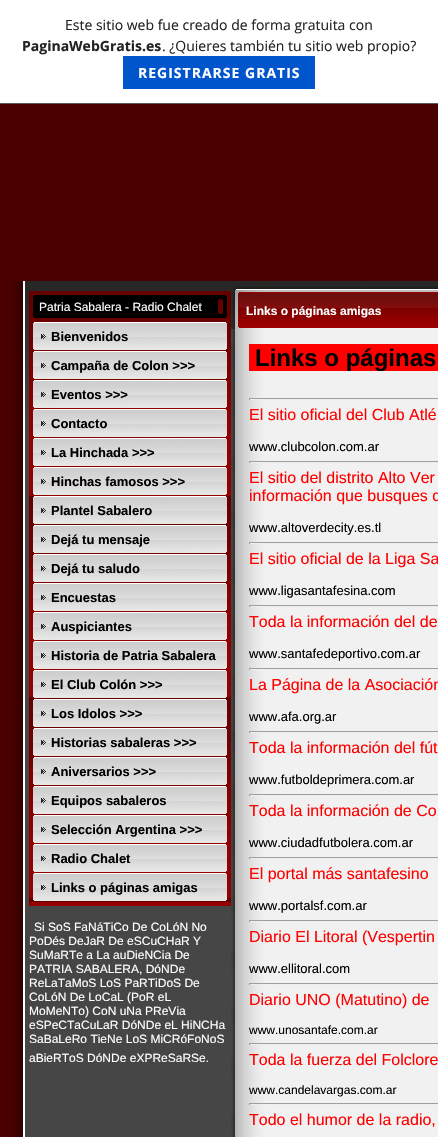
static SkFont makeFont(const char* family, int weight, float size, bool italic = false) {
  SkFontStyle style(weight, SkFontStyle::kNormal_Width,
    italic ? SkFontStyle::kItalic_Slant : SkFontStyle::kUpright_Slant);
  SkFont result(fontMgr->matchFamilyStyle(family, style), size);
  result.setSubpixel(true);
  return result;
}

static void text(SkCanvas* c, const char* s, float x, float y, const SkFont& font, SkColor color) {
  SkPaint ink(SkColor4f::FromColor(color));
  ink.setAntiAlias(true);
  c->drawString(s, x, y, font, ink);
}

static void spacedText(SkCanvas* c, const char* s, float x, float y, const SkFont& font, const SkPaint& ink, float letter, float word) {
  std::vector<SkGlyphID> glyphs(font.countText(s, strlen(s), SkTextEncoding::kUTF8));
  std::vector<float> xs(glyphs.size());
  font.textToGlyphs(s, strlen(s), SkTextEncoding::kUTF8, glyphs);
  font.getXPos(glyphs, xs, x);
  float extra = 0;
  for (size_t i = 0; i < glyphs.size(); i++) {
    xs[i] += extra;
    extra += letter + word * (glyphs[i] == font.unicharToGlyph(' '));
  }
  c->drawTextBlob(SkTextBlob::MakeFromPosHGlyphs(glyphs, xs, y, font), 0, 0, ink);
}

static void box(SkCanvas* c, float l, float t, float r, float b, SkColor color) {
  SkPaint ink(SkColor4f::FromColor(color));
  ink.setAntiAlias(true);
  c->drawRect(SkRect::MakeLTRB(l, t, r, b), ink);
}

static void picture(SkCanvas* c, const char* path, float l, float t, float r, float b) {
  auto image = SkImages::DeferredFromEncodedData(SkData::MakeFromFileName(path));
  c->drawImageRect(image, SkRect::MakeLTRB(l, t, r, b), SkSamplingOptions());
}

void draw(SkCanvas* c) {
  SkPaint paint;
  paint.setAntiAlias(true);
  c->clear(0xff4a0001);
  box(c, 0, 0, 438, 103, 0xffffffff);
  box(c, 0, 103, 438, 104, 0xff5a5a5a);
  SkFont face1 = makeFont("Open Sans", 400, 14);
  text(c, "Este sitio web fue creado de forma gratuita con", 65, 30, face1, 0xff232323);
  SkFont face2 = makeFont("Open Sans", 700, 14);
  text(c, "PaginaWebGratis.es", 22, 51, face2, 0xff232323);
  text(c, ". ¿Quieres también tu sitio web propio?", 162, 51, face1, 0xff232323);
  box(c, 123, 56, 315, 89, 0xff0055cc);
  paint.setColor(0xffffffff);
  spacedText(c, "REGISTRARSE GRATIS", 138, 78, face2, paint, 1, 0);
  picture(c, "img_01.png", 13, 281, 23, 1137);
  picture(c, "img_02.png", 23, 281, 25, 1137);
  picture(c, "img_03.png", 25, 281, 231, 1137);
  box(c, 29, 291, 231, 295, 0xff640000);
  picture(c, "img_04.png", 29, 295, 231, 902);
  picture(c, "img_05.png", 33, 295, 227, 318);
  SkFont face3 = makeFont("Liberation Sans", 400, 12);
  text(c, "Patria Sabalera - Radio Chalet", 39, 311, face3, 0xffffffff);
  picture(c, "img_06.png", 33, 322, 227, 350);
  SkFont face4 = makeFont("Liberation Sans", 700, 13);
  text(c, "Bienvenidos", 51, 341, face4, 0xff000000);
  picture(c, "img_07.png", 33, 351, 227, 379);
  text(c, "Campaña de Colon >>>", 51, 370, face4, 0xff000000);
  picture(c, "img_08.png", 33, 380, 227, 408);
  text(c, "Eventos >>>", 51, 399, face4, 0xff000000);
  picture(c, "img_09.png", 33, 409, 227, 437);
  text(c, "Contacto", 51, 428, face4, 0xff000000);
  picture(c, "img_10.png", 33, 438, 227, 466);
  text(c, "La Hinchada >>>", 51, 457, face4, 0xff000000);
  picture(c, "img_11.png", 33, 467, 227, 495);
  text(c, "Hinchas famosos >>>", 51, 486, face4, 0xff000000);
  picture(c, "img_12.png", 33, 496, 227, 524);
  text(c, "Plantel Sabalero", 51, 515, face4, 0xff000000);
  picture(c, "img_13.png", 33, 525, 227, 553);
  text(c, "Dejá tu mensaje", 51, 544, face4, 0xff000000);
  picture(c, "img_14.png", 33, 554, 227, 582);
  text(c, "Dejá tu saludo", 51, 573, face4, 0xff000000);
  picture(c, "img_15.png", 33, 583, 227, 611);
  text(c, "Encuestas", 51, 602, face4, 0xff000000);
  picture(c, "img_16.png", 33, 612, 227, 640);
  text(c, "Auspiciantes", 51, 631, face4, 0xff000000);
  picture(c, "img_10.png", 33, 641, 227, 669);
  text(c, "Historia de Patria Sabalera", 51, 660, face4, 0xff000000);
  picture(c, "img_17.png", 33, 670, 227, 698);
  text(c, "El Club Colón >>>", 51, 689, face4, 0xff000000);
  picture(c, "img_18.png", 33, 699, 227, 727);
  text(c, "Los Idolos >>>", 51, 718, face4, 0xff000000);
  picture(c, "img_19.png", 33, 728, 227, 756);
  text(c, "Historias sabaleras >>>", 51, 747, face4, 0xff000000);
  picture(c, "img_20.png", 33, 757, 227, 785);
  text(c, "Aniversarios >>>", 51, 776, face4, 0xff000000);
  picture(c, "img_21.png", 33, 786, 227, 814);
  text(c, "Equipos sabaleros", 51, 805, face4, 0xff000000);
  picture(c, "img_22.png", 33, 815, 227, 843);
  text(c, "Selección Argentina >>>", 51, 834, face4, 0xff000000);
  picture(c, "img_23.png", 33, 844, 227, 872);
  text(c, "Radio Chalet", 51, 863, face4, 0xff000000);
  picture(c, "img_17.png", 33, 873, 227, 901);
  text(c, "Links o páginas amigas", 51, 892, face4, 0xff000000);
  box(c, 29, 902, 231, 906, 0xff940000);
  text(c, "Si SoS FaNáTiCo De CoLóN No", 34, 931, face3, 0xffffffff);
  text(c, "PoDés DeJaR De eSCuCHaR Y", 29, 945, face3, 0xffffffff);
  text(c, "SuMaRTe a La auDieNCia De", 29, 959, face3, 0xffffffff);
  text(c, "PATRIA SABALERA, DóNDe", 29, 973, face3, 0xffffffff);
  text(c, "ReLaTaMoS LoS PaRTiDoS De", 29, 987, face3, 0xffffffff);
  text(c, "CoLóN De LoCaL (PoR eL", 29, 1001, face3, 0xffffffff);
  text(c, "MoMeNTo) CoN uNa PReVia", 29, 1015, face3, 0xffffffff);
  text(c, "eSPeCTaCuLaR DóNDe eL HiNCHa", 29, 1029, face3, 0xffffffff);
  text(c, "SaBaLeRo TieNe LoS MiCRóFoNoS", 29, 1043, face3, 0xffffffff);
  text(c, "aBieRToS DóNDe eXPReSaRSe.", 29, 1062, face3, 0xffffffff);
  picture(c, "img_24.png", 231, 281, 438, 292);
  picture(c, "img_25.png", 233, 286, 438, 292);
  picture(c, "img_26.png", 231, 329, 438, 1137);
  picture(c, "img_27.png", 231, 292, 438, 329);
  SkFont face5 = makeFont("Liberation Sans", 700, 12);
  text(c, "Links o páginas amigas", 246, 315, face5, 0xffffffff);
  box(c, 249, 344, 438, 371, 0xffff0000);
  SkFont face6 = makeFont("Liberation Sans", 700, 24);
  text(c, "Links o páginas", 255, 366, face6, 0xff000000);
  box(c, 249, 398, 438, 399, 0xff9f9f9f);
  box(c, 249, 399, 438, 400, 0xffeeeeee);
  box(c, 249, 398, 250, 400, 0xff9f9f9f);
  SkFont face7 = makeFont("Liberation Sans", 400, 16);
  text(c, "El sitio oficial del Club Atlé", 249, 420, face7, 0xffff0000);
  SkFont face8 = makeFont("Liberation Sans", 400, 13);
  text(c, "www.clubcolon.com.ar", 249, 451, face8, 0xff000000);
  box(c, 249, 461, 438, 462, 0xff9f9f9f);
  box(c, 249, 462, 438, 463, 0xffeeeeee);
  box(c, 249, 461, 250, 463, 0xff9f9f9f);
  text(c, "El sitio del distrito Alto Ver", 249, 483, face7, 0xffff0000);
  text(c, "información que busques d", 249, 501, face7, 0xffff0000);
  text(c, "www.altoverdecity.es.tl", 249, 532, face8, 0xff000000);
  box(c, 249, 542, 438, 543, 0xff9f9f9f);
  box(c, 249, 543, 438, 544, 0xffeeeeee);
  box(c, 249, 542, 250, 544, 0xff9f9f9f);
  text(c, "El sitio oficial de la Liga Sa", 249, 564, face7, 0xffff0000);
  text(c, "www.ligasantafesina.com", 249, 595, face8, 0xff000000);
  box(c, 249, 605, 438, 606, 0xff9f9f9f);
  box(c, 249, 606, 438, 607, 0xffeeeeee);
  box(c, 249, 605, 250, 607, 0xff9f9f9f);
  text(c, "Toda la información del de", 249, 627, face7, 0xffff0000);
  text(c, "www.santafedeportivo.com.ar", 249, 658, face8, 0xff000000);
  box(c, 249, 668, 438, 669, 0xff9f9f9f);
  box(c, 249, 669, 438, 670, 0xffeeeeee);
  box(c, 249, 668, 250, 670, 0xff9f9f9f);
  text(c, "La Página de la Asociación", 249, 690, face7, 0xffff0000);
  text(c, "www.afa.org.ar", 249, 721, face8, 0xff000000);
  box(c, 249, 731, 438, 732, 0xff9f9f9f);
  box(c, 249, 732, 438, 733, 0xffeeeeee);
  box(c, 249, 731, 250, 733, 0xff9f9f9f);
  text(c, "Toda la información del fút", 249, 753, face7, 0xffff0000);
  text(c, "www.futboldeprimera.com.ar", 249, 784, face8, 0xff000000);
  box(c, 249, 794, 438, 795, 0xff9f9f9f);
  box(c, 249, 795, 438, 796, 0xffeeeeee);
  box(c, 249, 794, 250, 796, 0xff9f9f9f);
  text(c, "Toda la información de Co", 249, 816, face7, 0xffff0000);
  text(c, "www.ciudadfutbolera.com.ar", 249, 847, face8, 0xff000000);
  box(c, 249, 857, 438, 858, 0xff9f9f9f);
  box(c, 249, 858, 438, 859, 0xffeeeeee);
  box(c, 249, 857, 250, 859, 0xff9f9f9f);
  text(c, "El portal más santafesino", 249, 879, face7, 0xffff0000);
  text(c, "www.portalsf.com.ar", 249, 910, face8, 0xff000000);
  box(c, 249, 920, 438, 921, 0xff9f9f9f);
  box(c, 249, 921, 438, 922, 0xffeeeeee);
  box(c, 249, 920, 250, 922, 0xff9f9f9f);
  text(c, "Diario El Litoral (Vespertin", 249, 942, face7, 0xffff0000);
  text(c, "www.ellitoral.com", 249, 973, face8, 0xff000000);
  box(c, 249, 983, 438, 984, 0xff9f9f9f);
  box(c, 249, 984, 438, 985, 0xffeeeeee);
  box(c, 249, 983, 250, 985, 0xff9f9f9f);
  text(c, "Diario UNO (Matutino) de", 249, 1005, face7, 0xffff0000);
  text(c, "www.unosantafe.com.ar", 249, 1034, face3, 0xff000000);
  box(c, 249, 1043, 438, 1044, 0xff9f9f9f);
  box(c, 249, 1044, 438, 1045, 0xffeeeeee);
  box(c, 249, 1043, 250, 1045, 0xff9f9f9f);
  text(c, "Toda la fuerza del Folclore", 249, 1065, face7, 0xffff0000);
  text(c, "www.candelavargas.com.ar", 249, 1094, face3, 0xff000000);
  box(c, 249, 1103, 438, 1104, 0xff9f9f9f);
  box(c, 249, 1104, 438, 1105, 0xffeeeeee);
  box(c, 249, 1103, 250, 1105, 0xff9f9f9f);
  text(c, "Todo el humor de la radio,", 249, 1125, face7, 0xffff0000);
}
